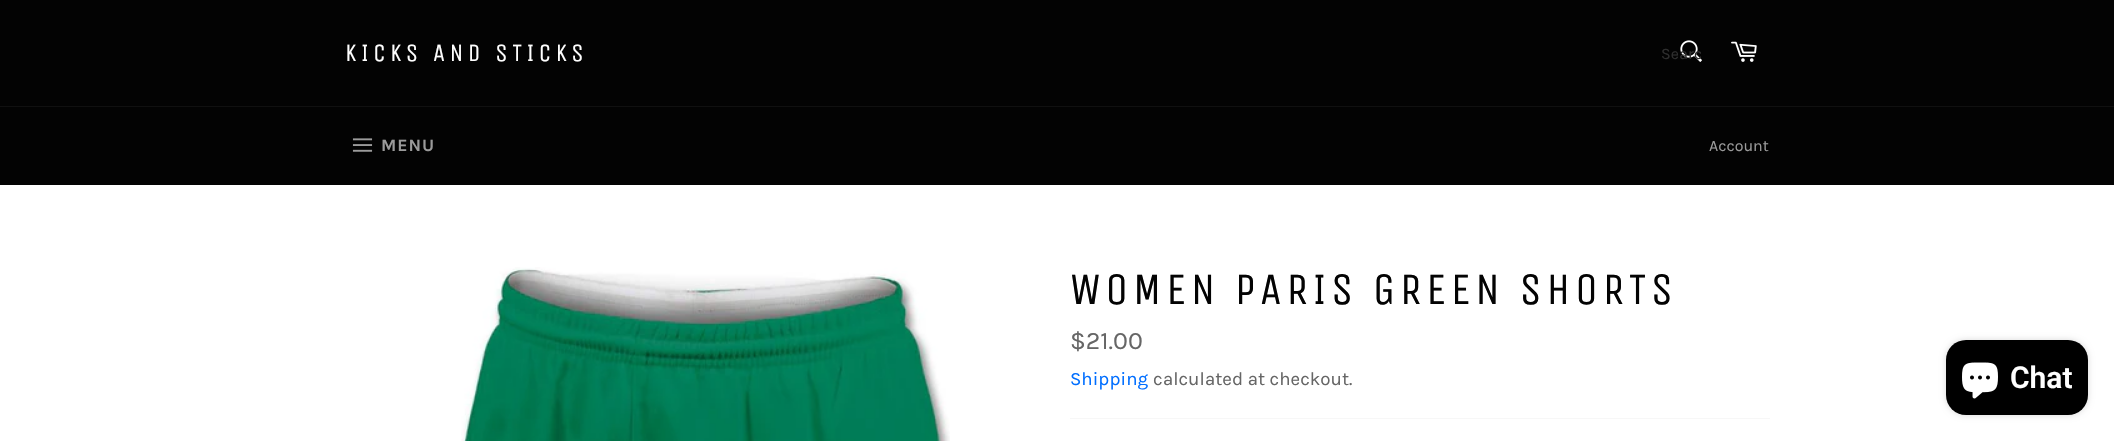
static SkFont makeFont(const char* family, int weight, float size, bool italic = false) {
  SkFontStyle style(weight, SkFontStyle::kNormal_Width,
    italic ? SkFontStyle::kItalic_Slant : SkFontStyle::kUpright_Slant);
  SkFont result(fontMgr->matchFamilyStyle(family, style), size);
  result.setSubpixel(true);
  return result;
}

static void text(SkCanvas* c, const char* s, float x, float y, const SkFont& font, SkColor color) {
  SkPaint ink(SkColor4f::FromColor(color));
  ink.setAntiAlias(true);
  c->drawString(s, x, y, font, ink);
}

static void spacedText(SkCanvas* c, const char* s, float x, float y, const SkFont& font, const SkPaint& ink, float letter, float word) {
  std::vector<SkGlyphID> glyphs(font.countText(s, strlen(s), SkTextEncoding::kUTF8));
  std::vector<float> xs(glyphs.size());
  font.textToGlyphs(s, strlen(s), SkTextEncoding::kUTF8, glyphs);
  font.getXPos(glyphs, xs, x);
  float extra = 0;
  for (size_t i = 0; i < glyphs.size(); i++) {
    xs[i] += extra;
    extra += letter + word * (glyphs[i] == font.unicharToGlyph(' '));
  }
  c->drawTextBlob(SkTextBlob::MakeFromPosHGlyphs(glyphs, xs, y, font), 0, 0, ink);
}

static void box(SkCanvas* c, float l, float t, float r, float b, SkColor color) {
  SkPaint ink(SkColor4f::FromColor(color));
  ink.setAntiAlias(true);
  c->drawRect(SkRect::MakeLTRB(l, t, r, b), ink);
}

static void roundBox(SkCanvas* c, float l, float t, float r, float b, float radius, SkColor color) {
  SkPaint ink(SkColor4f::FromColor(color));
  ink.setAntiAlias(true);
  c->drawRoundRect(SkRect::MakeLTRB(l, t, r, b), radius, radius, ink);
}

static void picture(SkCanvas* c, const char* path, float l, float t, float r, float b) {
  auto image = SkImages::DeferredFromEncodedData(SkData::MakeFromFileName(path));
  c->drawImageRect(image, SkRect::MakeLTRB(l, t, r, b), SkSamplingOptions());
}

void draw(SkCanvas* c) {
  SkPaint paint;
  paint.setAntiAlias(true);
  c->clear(0xff030303);
  SkFont face1 = makeFont("Unica One", 400, 25);
  paint.setColor(0xffffffff);
  spacedText(c, "KICKS AND STICKS", 345, 61, face1, paint, 4.5f, 0);
  picture(c, "img_01.png", 1680, 40, 1702, 62);
  c->save();
  c->clipRect(SkRect::MakeLTRB(1661, 44, 1701, 63));
  SkFont face2 = makeFont("Karla", 400, 16);
  text(c, "Searc", 1661, 59, face2, 0xff2e2e2e);
  c->restore();
  picture(c, "img_02.png", 1731, 41, 1757, 62);
  box(c, 0, 106, 2114, 107, 0xff101010);
  picture(c, "img_03.png", 352, 138, 373, 152);
  SkFont face3 = makeFont("Karla", 700, 17.5f);
  paint.setColor(0xff9a9a9a);
  spacedText(c, "MENU", 381, 151, face3, paint, 1, 0);
  text(c, "Account", 1709, 151, face2, 0xff9a9a9a);
  box(c, 0, 185, 2114, 441, 0xffffffff);
  picture(c, "img_04.png", 461, 267, 950, 441);
  SkFont face4 = makeFont("Unica One", 400, 45);
  paint.setColor(0xff030303);
  spacedText(c, "WOMEN PARIS GREEN SHORTS", 1070, 304, face4, paint, 4.5f, 0);
  SkFont face5 = makeFont("Karla", 400, 25);
  text(c, "$21.00", 1070, 349, face5, 0xff666666);
  SkFont face6 = makeFont("Karla", 400, 18.75f);
  text(c, "Shipping", 1070, 385, face6, 0xff006eff);
  text(c, "calculated at checkout.", 1153, 385, face6, 0xff666666);
  box(c, 1070, 418, 1770, 419, 0xfff7f7f7);
  paint.setColor(0x26000000);
  paint.setMaskFilter(SkMaskFilter::MakeBlur(kNormal_SkBlurStyle, 3));
  c->drawRoundRect(SkRect::MakeLTRB(1946, 340, 2088, 415), 20, 20, paint);
  paint.setMaskFilter(nullptr);
  roundBox(c, 1946, 340, 2088, 415, 20, 0xff000000);
  picture(c, "img_05.png", 1962, 362, 1998, 399);
  SkFont face7 = makeFont("Roboto", 600, 30);
  text(c, "Chat", 2010, 388, face7, 0xffffffff);
}
